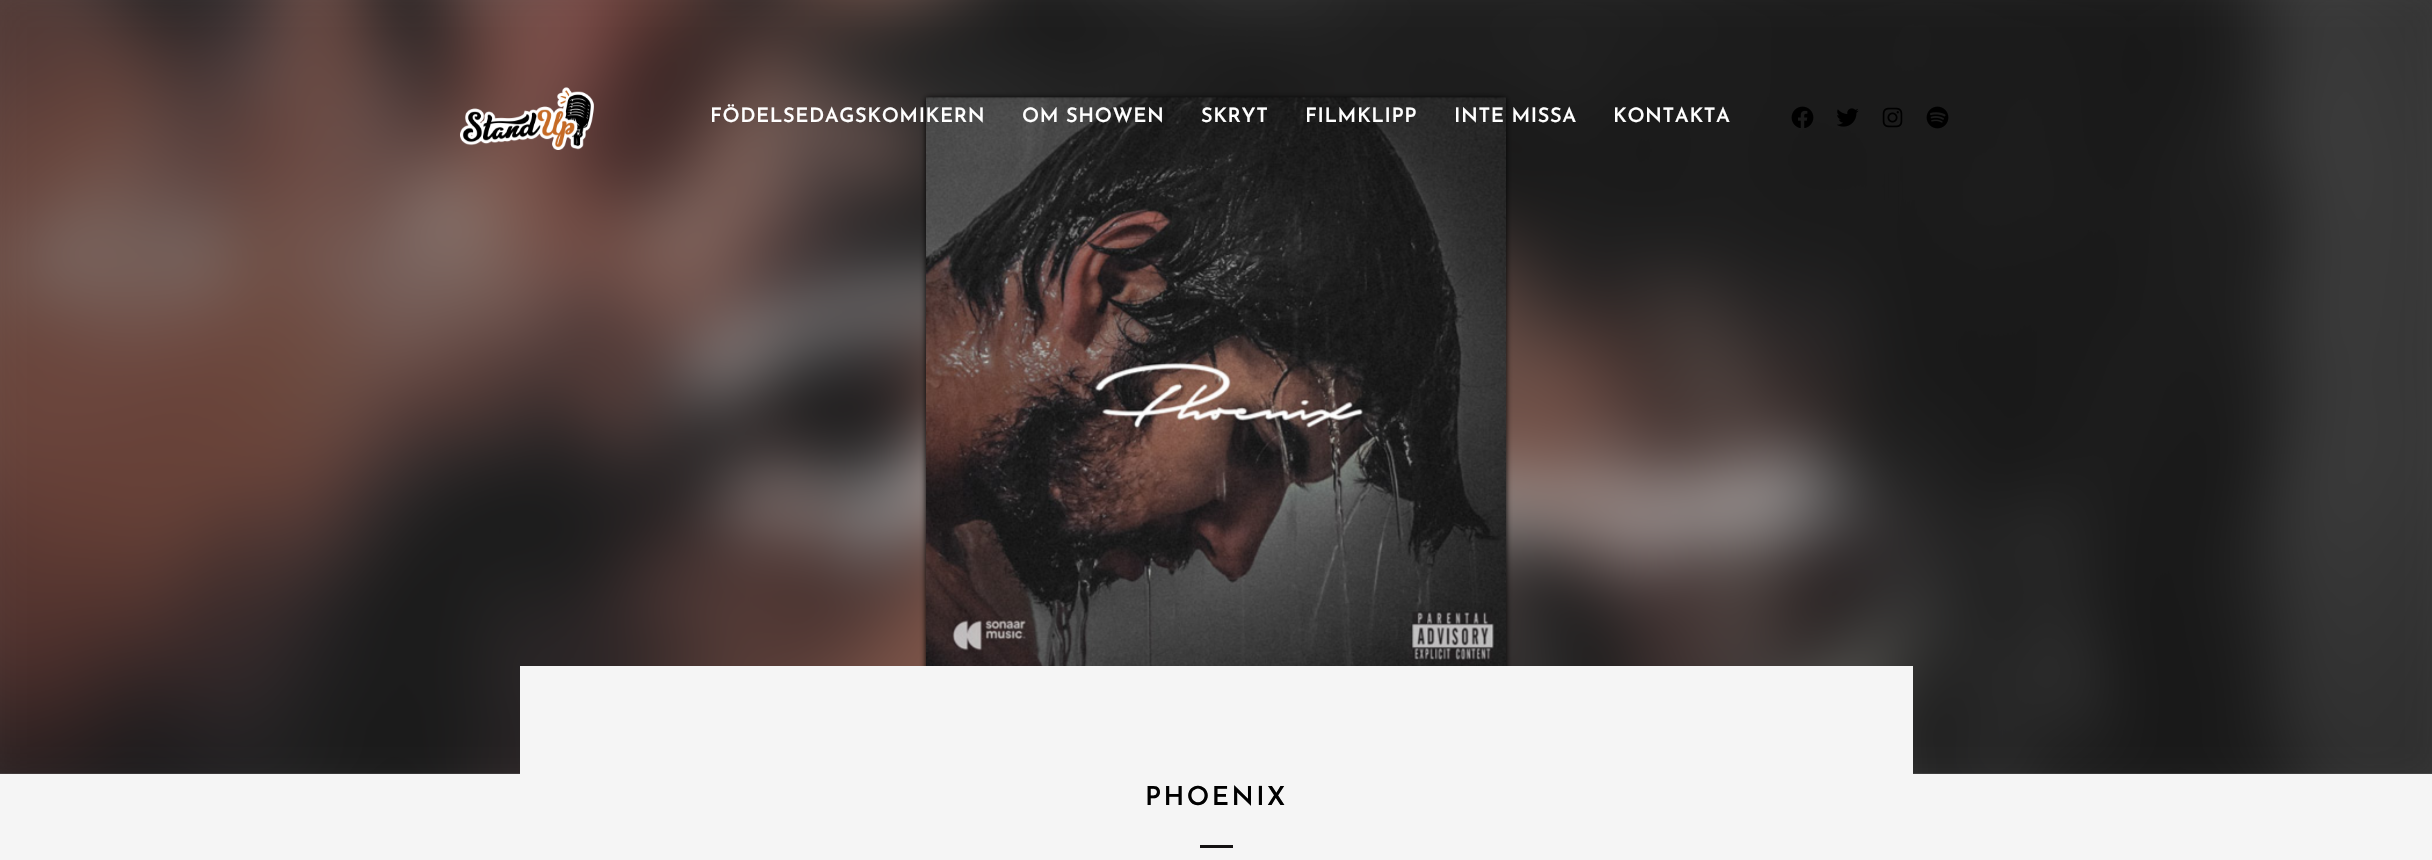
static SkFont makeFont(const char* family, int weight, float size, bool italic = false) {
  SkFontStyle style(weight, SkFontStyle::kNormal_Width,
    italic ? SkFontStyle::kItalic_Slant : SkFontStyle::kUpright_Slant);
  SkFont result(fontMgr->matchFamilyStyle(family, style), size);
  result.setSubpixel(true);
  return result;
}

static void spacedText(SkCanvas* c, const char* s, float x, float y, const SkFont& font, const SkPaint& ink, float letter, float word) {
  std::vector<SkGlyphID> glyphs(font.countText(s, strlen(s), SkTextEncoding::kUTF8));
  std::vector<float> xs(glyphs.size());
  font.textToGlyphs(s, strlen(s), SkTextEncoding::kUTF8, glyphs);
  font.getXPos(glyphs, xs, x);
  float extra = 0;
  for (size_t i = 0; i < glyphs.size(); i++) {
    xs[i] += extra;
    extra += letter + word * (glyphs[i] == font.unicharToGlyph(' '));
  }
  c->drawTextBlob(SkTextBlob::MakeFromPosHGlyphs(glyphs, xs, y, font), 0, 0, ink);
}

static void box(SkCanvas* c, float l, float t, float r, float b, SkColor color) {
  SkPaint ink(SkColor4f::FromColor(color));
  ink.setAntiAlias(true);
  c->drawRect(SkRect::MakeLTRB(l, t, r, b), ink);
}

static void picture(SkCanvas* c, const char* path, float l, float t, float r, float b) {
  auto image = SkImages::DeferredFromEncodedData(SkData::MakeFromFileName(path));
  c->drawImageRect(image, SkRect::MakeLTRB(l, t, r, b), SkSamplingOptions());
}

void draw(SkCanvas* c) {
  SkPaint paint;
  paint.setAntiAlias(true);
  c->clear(0xfff5f5f5);
  box(c, 0, 0, 2432, 774, 0xff777777);
  picture(c, "img_06.png", 0, 0, 2432, 774);
  picture(c, "img_01.png", 460, 87, 594, 150);
  paint.setColor(0xff000000);
  paint.setMaskFilter(SkMaskFilter::MakeBlur(kNormal_SkBlurStyle, 3));
  c->drawRect(SkRect::MakeLTRB(926, 98, 1506, 678), paint);
  paint.setMaskFilter(nullptr);
  picture(c, "img_07.png", 926, 97, 1506, 666);
  SkFont face1 = makeFont("Josefin Sans", 600, 20);
  paint.setColor(0xffffffff);
  spacedText(c, "FÖDELSEDAGSKOMIKERN", 710, 122, face1, paint, 0.6f, 0);
  spacedText(c, "OM SHOWEN", 1022, 122, face1, paint, 0.6f, 0);
  spacedText(c, "SKRYT", 1201, 122, face1, paint, 0.6f, 0);
  spacedText(c, "FILMKLIPP", 1305, 122, face1, paint, 0.6f, 0);
  spacedText(c, "INTE MISSA", 1454, 122, face1, paint, 0.6f, 0);
  spacedText(c, "KONTAKTA", 1613, 122, face1, paint, 0.6f, 0);
  picture(c, "img_02.png", 1791, 106, 1814, 128);
  picture(c, "img_03.png", 1837, 108, 1859, 127);
  picture(c, "img_04.png", 1882, 107, 1903, 128);
  picture(c, "img_05.png", 1926, 106, 1949, 129);
  box(c, 520, 666, 1913, 774, 0xfff5f5f5);
  SkFont face2 = makeFont("Josefin Sans", 600, 26.25f);
  paint.setColor(0xff000000);
  spacedText(c, "PHOENIX", 1145, 805, face2, paint, 2.5f, 0);
  box(c, 1200, 845, 1233, 848, 0xff131112);
}
